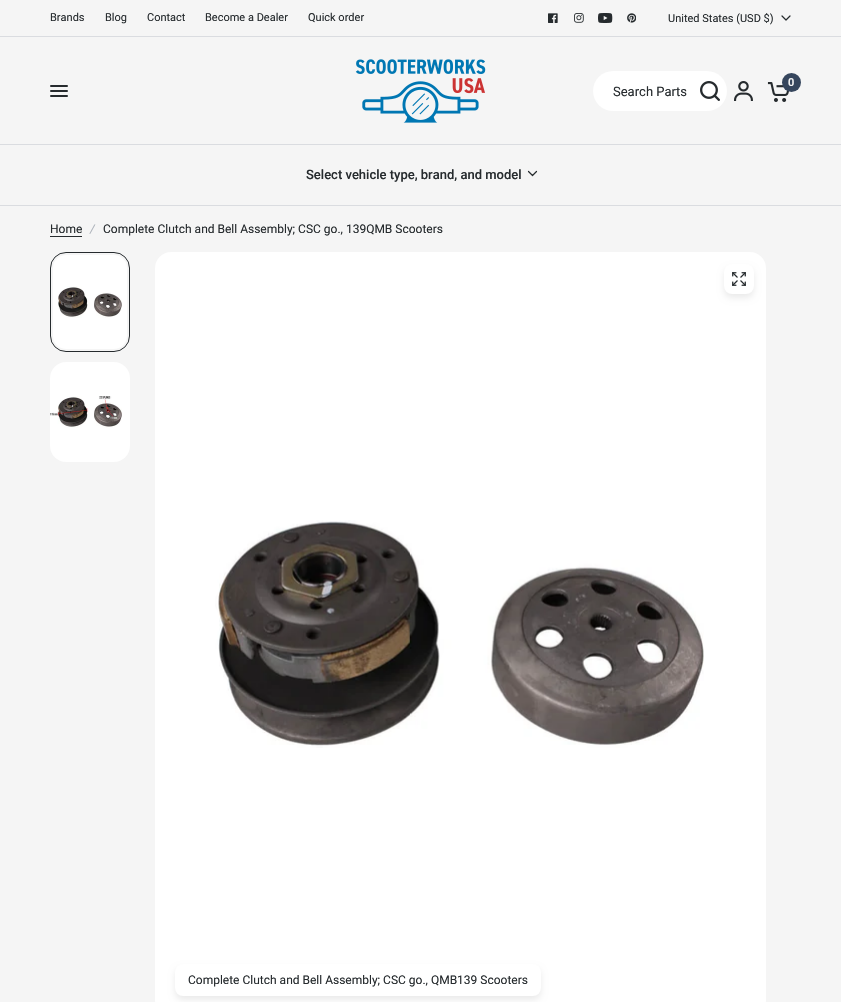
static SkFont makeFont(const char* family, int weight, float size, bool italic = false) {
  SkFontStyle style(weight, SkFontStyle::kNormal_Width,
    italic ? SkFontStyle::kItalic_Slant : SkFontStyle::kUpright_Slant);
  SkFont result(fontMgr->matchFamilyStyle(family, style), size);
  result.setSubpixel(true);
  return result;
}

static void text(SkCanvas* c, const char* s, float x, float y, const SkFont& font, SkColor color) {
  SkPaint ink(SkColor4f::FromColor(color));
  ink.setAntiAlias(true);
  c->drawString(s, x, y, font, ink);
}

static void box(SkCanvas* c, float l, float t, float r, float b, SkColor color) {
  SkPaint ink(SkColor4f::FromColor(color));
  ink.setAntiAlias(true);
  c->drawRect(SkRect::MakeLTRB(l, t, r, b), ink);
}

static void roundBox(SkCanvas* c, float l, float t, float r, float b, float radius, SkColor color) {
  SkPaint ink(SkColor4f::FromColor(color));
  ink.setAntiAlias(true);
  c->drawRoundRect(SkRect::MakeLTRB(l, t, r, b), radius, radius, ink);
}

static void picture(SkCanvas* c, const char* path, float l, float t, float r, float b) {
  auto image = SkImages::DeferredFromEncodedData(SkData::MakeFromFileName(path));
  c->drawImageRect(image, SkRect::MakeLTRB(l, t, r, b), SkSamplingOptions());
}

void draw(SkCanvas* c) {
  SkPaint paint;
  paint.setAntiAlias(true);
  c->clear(0xfff5f5f5);
  box(c, 0, 36, 841, 37, 0xffdadce0);
  SkFont face1 = makeFont("Roboto", 400, 11);
  text(c, "Brands", 50, 21, face1, 0xff262b2e);
  text(c, "Blog", 105, 21, face1, 0xff262b2e);
  text(c, "Contact", 147, 21, face1, 0xff262b2e);
  text(c, "Become a Dealer", 205, 21, face1, 0xff262b2e);
  text(c, "Quick order", 308, 21, face1, 0xff262b2e);
  picture(c, "img_01.png", 548, 13, 558, 23);
  picture(c, "img_02.png", 574, 13, 584, 23);
  picture(c, "img_03.png", 598, 13, 613, 23);
  picture(c, "img_04.png", 627, 13, 636, 23);
  text(c, "United States (USD $)", 668, 22, face1, 0xff262b2e);
  paint.setStyle(SkPaint::kStroke_Style);
  paint.setStrokeWidth(1.2f);
  paint.setStrokeCap(SkPaint::kRound_Cap);
  paint.setStrokeJoin(SkPaint::kRound_Join);
  paint.setColor(0xff262b2e);
  c->drawPath(SkPathBuilder().moveTo(782, 16).lineTo(786, 20).lineTo(790, 16).detach(), paint);
  roundBox(c, 50, 85, 68, 87, 1, 0xff262b2e);
  roundBox(c, 50, 90, 68, 92, 1, 0xff262b2e);
  roundBox(c, 50, 95, 68, 97, 1, 0xff262b2e);
  picture(c, "img_05.png", 355, 59, 486, 123);
  roundBox(c, 593, 71, 727, 111, 20, 0xffffffff);
  SkFont face2 = makeFont("Roboto", 400, 13);
  text(c, "Search Parts", 613, 96, face2, 0xff262b2e);
  picture(c, "img_06.png", 700, 81, 720, 101);
  picture(c, "img_07.png", 734, 81, 753, 101);
  picture(c, "img_08.png", 767, 82, 789, 102);
  paint.setStyle(SkPaint::kFill_Style);
  paint.setColor(0xff36465d);
  c->drawCircle(791.5f, 82.5f, 9.5f, paint);
  SkFont face3 = makeFont("Roboto", 600, 11);
  text(c, "0", 788, 86, face3, 0xfff5f5f5);
  box(c, 0, 144, 841, 145, 0xffdadce0);
  box(c, 0, 205, 841, 206, 0xffdadce0);
  SkFont face4 = makeFont("Roboto", 500, 13);
  text(c, "Select vehicle type, brand, and model", 306, 179, face4, 0xff262b2e);
  paint.setStyle(SkPaint::kStroke_Style);
  paint.setColor(0xff262b2e);
  c->drawPath(SkPathBuilder().moveTo(536.5f, 171.5f).lineTo(532.5f, 175.5f).lineTo(528.5f, 171.5f).detach(), paint);
  SkFont face5 = makeFont("Roboto", 400, 12);
  text(c, "Home", 50, 233, face5, 0xff262b2e);
  box(c, 50, 236, 82, 237, 0xff262b2e);
  SkFont face6 = makeFont("Roboto", 400, 12, true);
  text(c, "/", 90, 233, face6, 0xffadb3bb);
  text(c, "Complete Clutch and Bell Assembly; CSC go., 139QMB Scooters", 103, 233, face5, 0xff262b2e);
  roundBox(c, 50, 252, 130, 352, 16, 0xffffffff);
  picture(c, "img_09.png", 58, 286, 122, 318);
  paint.setStrokeWidth(3);
  paint.setStrokeCap(SkPaint::kButt_Cap);
  paint.setStrokeJoin(SkPaint::kMiter_Join);
  paint.setColor(0xfff5f5f5);
  c->drawRoundRect(SkRect::MakeLTRB(51.5f, 253.5f, 128.5f, 350.5f), 14.5f, 14.5f, paint);
  paint.setStrokeWidth(1);
  paint.setColor(0xff262b2e);
  c->drawRoundRect(SkRect::MakeLTRB(50.5f, 252.5f, 129.5f, 351.5f), 15.5f, 15.5f, paint);
  roundBox(c, 50, 362, 130, 462, 16, 0xffffffff);
  picture(c, "img_10.png", 50, 396, 122, 428);
  roundBox(c, 155, 252, 766, 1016, 16, 0xffffffff);
  picture(c, "img_11.png", 215, 520, 704, 748);
  paint.setStyle(SkPaint::kFill_Style);
  paint.setColor(0x14000000);
  paint.setMaskFilter(SkMaskFilter::MakeBlur(kNormal_SkBlurStyle, 3));
  c->drawRoundRect(SkRect::MakeLTRB(724, 268, 754, 298), 8, 8, paint);
  paint.setMaskFilter(nullptr);
  roundBox(c, 724, 264, 754, 294, 8, 0xffffffff);
  picture(c, "img_12.png", 732, 272, 746, 286);
  paint.setMaskFilter(SkMaskFilter::MakeBlur(kNormal_SkBlurStyle, 3));
  c->drawRoundRect(SkRect::MakeLTRB(175, 968, 541, 1000), 8, 8, paint);
  paint.setMaskFilter(nullptr);
  roundBox(c, 175, 964, 541, 996, 8, 0xffffffff);
  text(c, "Complete Clutch and Bell Assembly; CSC go., QMB139 Scooters", 188, 984, face5, 0xff262b2e);
}
